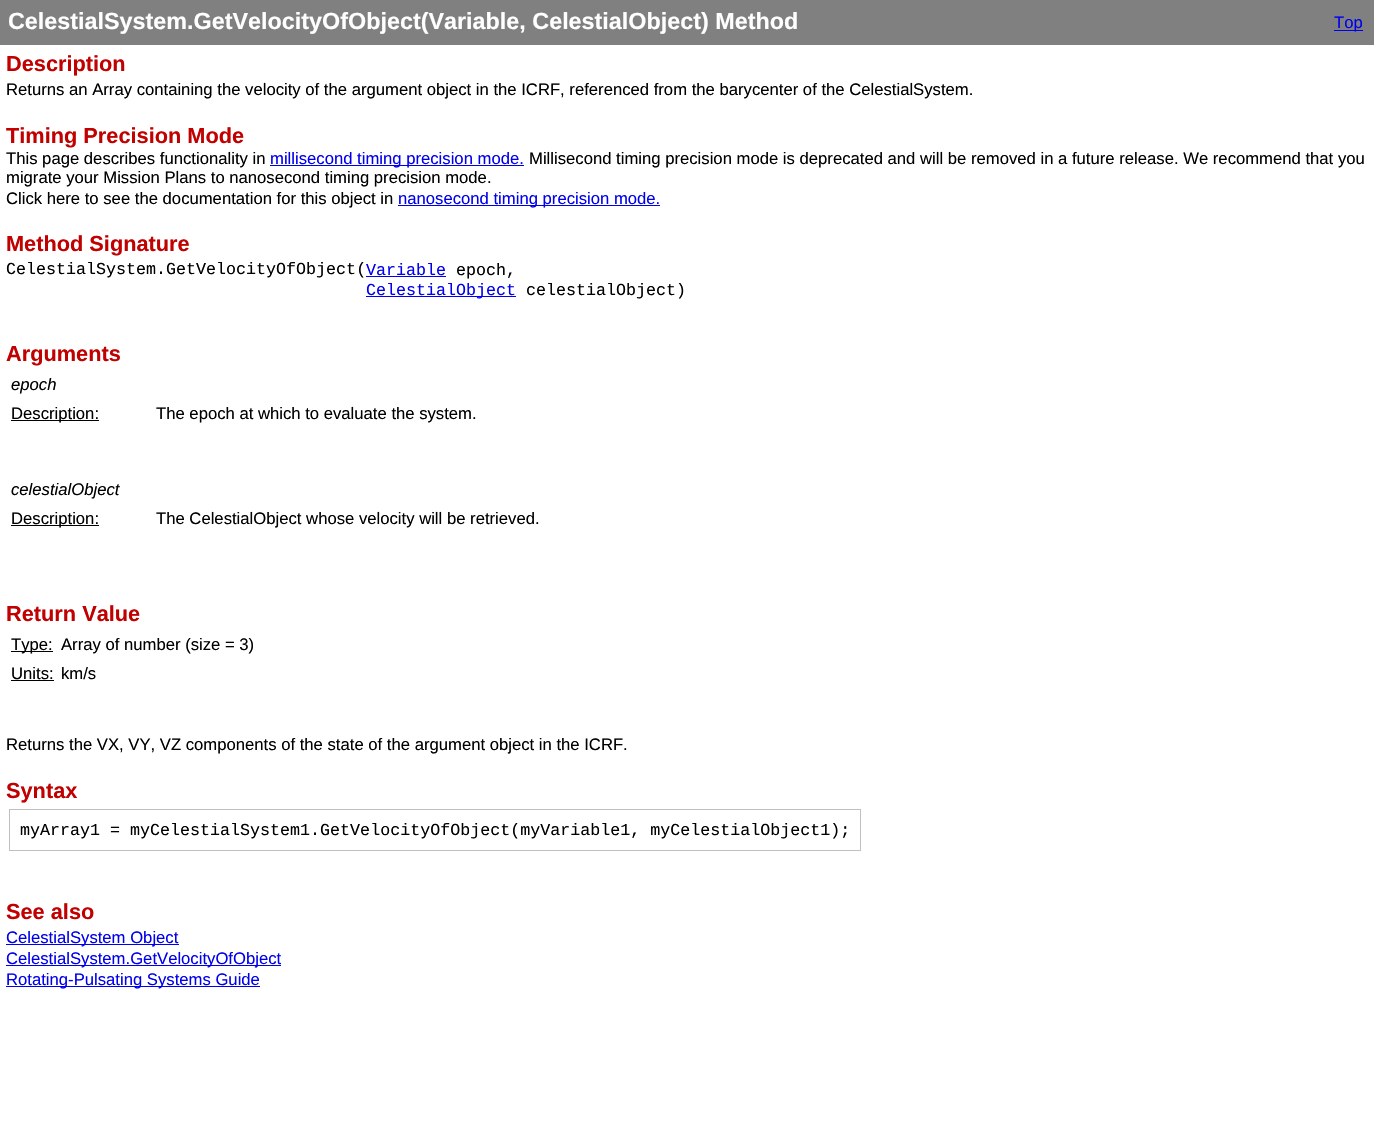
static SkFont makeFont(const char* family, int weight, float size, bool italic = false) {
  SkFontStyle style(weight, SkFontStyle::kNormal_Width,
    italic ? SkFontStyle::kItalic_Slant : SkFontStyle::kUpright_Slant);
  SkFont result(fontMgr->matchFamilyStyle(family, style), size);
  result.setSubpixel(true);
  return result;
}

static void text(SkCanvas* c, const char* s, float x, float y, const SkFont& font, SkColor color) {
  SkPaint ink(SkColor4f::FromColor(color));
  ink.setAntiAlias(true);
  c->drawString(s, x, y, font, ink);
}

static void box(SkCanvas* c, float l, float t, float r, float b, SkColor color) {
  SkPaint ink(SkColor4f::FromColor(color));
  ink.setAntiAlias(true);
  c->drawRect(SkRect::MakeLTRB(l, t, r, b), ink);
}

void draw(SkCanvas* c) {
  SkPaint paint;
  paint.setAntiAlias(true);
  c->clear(0xffffffff);
  box(c, 0, 0, 1374, 45, 0xff808080);
  SkFont face1 = makeFont("Liberation Sans", 700, 23.35f);
  text(c, "CelestialSystem.GetVelocityOfObject(Variable, CelestialObject) Method", 8, 29, face1, 0xffffffff);
  box(c, 1334, 30, 1363, 31, 0xff0000ee);
  SkFont face2 = makeFont("Liberation Sans", 400, 16.67f);
  text(c, "Top", 1334, 28, face2, 0xff0000ee);
  SkFont face3 = makeFont("Liberation Sans", 700, 21.75f);
  text(c, "Description", 6, 71, face3, 0xffc10000);
  text(c, "Returns an Array containing the velocity of the argument object in the ICRF, referenced from the barycenter of the CelestialSystem.", 6, 95, face2, 0xff000000);
  text(c, "Timing Precision Mode", 6, 143, face3, 0xffc10000);
  text(c, "This page describes functionality in", 6, 164, face2, 0xff000000);
  box(c, 270, 165, 524, 166, 0xff0000ee);
  text(c, "millisecond timing precision mode.", 270, 164, face2, 0xff0000ee);
  text(c, "Millisecond timing precision mode is deprecated and will be removed in a future release. We recommend that you", 529, 164, face2, 0xff000000);
  text(c, "migrate your Mission Plans to nanosecond timing precision mode.", 6, 183, face2, 0xff000000);
  text(c, "Click here to see the documentation for this object in", 6, 204, face2, 0xff000000);
  box(c, 398, 205, 660, 206, 0xff0000ee);
  text(c, "nanosecond timing precision mode.", 398, 204, face2, 0xff0000ee);
  text(c, "Method Signature", 6, 251, face3, 0xffc10000);
  SkFont face4 = makeFont("Liberation Mono", 400, 16.67f);
  text(c, "CelestialSystem.GetVelocityOfObject(", 6, 274, face4, 0xff000000);
  text(c, "Variable", 366, 275, face4, 0xff0000ee);
  box(c, 366, 276, 446, 277, 0xff0000ee);
  text(c, "epoch,", 456, 275, face4, 0xff000000);
  box(c, 366, 296, 516, 297, 0xff0000ee);
  text(c, "CelestialObject", 366, 295, face4, 0xff0000ee);
  text(c, "celestialObject)", 526, 295, face4, 0xff000000);
  text(c, "Arguments", 6, 361, face3, 0xffc10000);
  SkFont face5 = makeFont("Liberation Sans", 400, 16.67f, true);
  text(c, "epoch", 11, 390, face5, 0xff000000);
  box(c, 11, 420, 99, 421, 0xff000000);
  text(c, "Description:", 11, 419, face2, 0xff000000);
  text(c, "The epoch at which to evaluate the system.", 156, 419, face2, 0xff000000);
  text(c, "celestialObject", 11, 495, face5, 0xff000000);
  box(c, 11, 525, 99, 526, 0xff000000);
  text(c, "Description:", 11, 524, face2, 0xff000000);
  text(c, "The CelestialObject whose velocity will be retrieved.", 156, 524, face2, 0xff000000);
  text(c, "Return Value", 6, 621, face3, 0xffc10000);
  box(c, 11, 651, 53, 652, 0xff000000);
  text(c, "Type:", 11, 650, face2, 0xff000000);
  text(c, "Array of number (size = 3)", 61, 650, face2, 0xff000000);
  text(c, "Units:", 11, 679, face2, 0xff000000);
  box(c, 11, 680, 54, 681, 0xff000000);
  text(c, "km/s", 61, 679, face2, 0xff000000);
  text(c, "Returns the VX, VY, VZ components of the state of the argument object in the ICRF.", 6, 750, face2, 0xff000000);
  text(c, "Syntax", 6, 798, face3, 0xffc10000);
  paint.setStyle(SkPaint::kStroke_Style);
  paint.setStrokeWidth(1);
  paint.setColor(0xffc0c0c0);
  c->drawRect(SkRect::MakeLTRB(9.5f, 809.5f, 860.5f, 850.5f), paint);
  text(c, "myArray1 = myCelestialSystem1.GetVelocityOfObject(myVariable1, myCelestialObject1);", 20, 835, face4, 0xff000000);
  text(c, "See also", 6, 919, face3, 0xffc10000);
  box(c, 6, 944, 179, 945, 0xff0000ee);
  text(c, "CelestialSystem Object", 6, 943, face2, 0xff0000ee);
  box(c, 6, 965, 281, 966, 0xff0000ee);
  text(c, "CelestialSystem.GetVelocityOfObject", 6, 964, face2, 0xff0000ee);
  box(c, 6, 986, 260, 987, 0xff0000ee);
  text(c, "Rotating-Pulsating Systems Guide", 6, 985, face2, 0xff0000ee);
}
